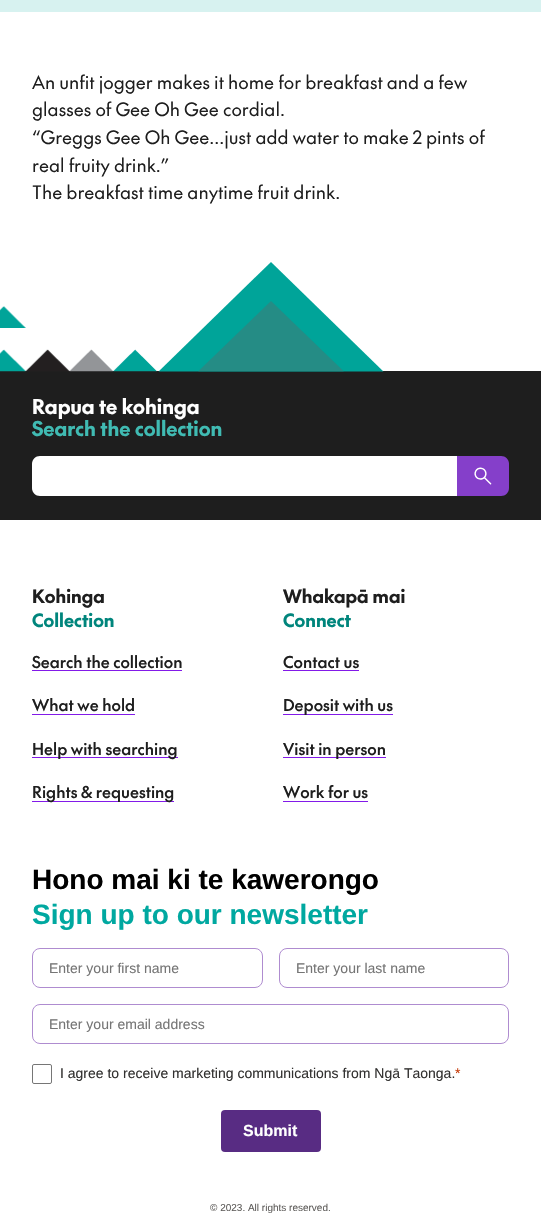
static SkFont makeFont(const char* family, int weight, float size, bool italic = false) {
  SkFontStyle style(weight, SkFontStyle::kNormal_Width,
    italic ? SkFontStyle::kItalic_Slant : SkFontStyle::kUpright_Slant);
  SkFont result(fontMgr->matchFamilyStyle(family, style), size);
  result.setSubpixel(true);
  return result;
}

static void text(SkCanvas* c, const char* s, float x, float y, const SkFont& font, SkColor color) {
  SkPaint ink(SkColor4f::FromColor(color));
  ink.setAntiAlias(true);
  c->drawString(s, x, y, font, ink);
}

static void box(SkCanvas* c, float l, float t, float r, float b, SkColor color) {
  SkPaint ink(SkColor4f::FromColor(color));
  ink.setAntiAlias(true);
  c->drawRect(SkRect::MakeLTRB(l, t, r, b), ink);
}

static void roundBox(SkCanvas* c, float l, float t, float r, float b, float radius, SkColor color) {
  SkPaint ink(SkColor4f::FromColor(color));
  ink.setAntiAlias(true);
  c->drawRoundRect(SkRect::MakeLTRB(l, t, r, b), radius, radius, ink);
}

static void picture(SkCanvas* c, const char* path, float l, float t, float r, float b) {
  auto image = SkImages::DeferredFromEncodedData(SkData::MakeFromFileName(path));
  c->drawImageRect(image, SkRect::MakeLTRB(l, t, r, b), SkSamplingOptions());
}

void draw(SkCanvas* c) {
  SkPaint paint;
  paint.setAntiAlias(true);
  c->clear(0xffffffff);
  box(c, 0, 0, 541, 12, 0xffd7f2f0);
  SkFont face1 = makeFont("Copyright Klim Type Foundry", 400, 18);
  text(c, "An unfit jogger makes it home for breakfast and a few", 32, 89, face1, 0xff1e1e1e);
  text(c, "glasses of Gee Oh Gee cordial.", 32, 116, face1, 0xff1e1e1e);
  text(c, "“Greggs Gee Oh Gee...just add water to make 2 pints of", 32, 144, face1, 0xff1e1e1e);
  text(c, "real fruity drink.”", 32, 172, face1, 0xff1e1e1e);
  text(c, "The breakfast time anytime fruit drink.", 32, 199, face1, 0xff1e1e1e);
  box(c, 0, 371, 541, 520, 0xff1e1e1e);
  picture(c, "img_01.png", 0, 306, 157, 372);
  picture(c, "img_02.png", 158, 262, 384, 372);
  SkFont face2 = makeFont("Copyright Klim Type Foundry", 700, 20);
  text(c, "Rapua te kohinga", 32, 414, face2, 0xffffffff);
  text(c, "Search the collection", 32, 436, face2, 0xff40bbb3);
  paint.setColor(0xffffffff);
  c->drawPath(SkPathBuilder().moveTo(40, 456).lineTo(457, 456).lineTo(457, 496).lineTo(40, 496).cubicTo(35.5f, 496, 32, 492.5f, 32, 488).lineTo(32, 464).cubicTo(32, 459.5f, 35.5f, 456, 40, 456).close().detach(), paint);
  paint.setColor(0xff853fca);
  c->drawPath(SkPathBuilder().moveTo(457, 456).lineTo(501, 456).cubicTo(505.5f, 456, 509, 459.5f, 509, 464).lineTo(509, 488).cubicTo(509, 492.5f, 505.5f, 496, 501, 496).lineTo(457, 496).close().detach(), paint);
  picture(c, "img_03.png", 474, 467, 492, 485);
  SkFont face3 = makeFont("Copyright Klim Type Foundry", 700, 18);
  text(c, "Kohinga", 32, 603, face3, 0xff1e1e1e);
  text(c, "Collection", 32, 627, face3, 0xff00857c);
  SkFont face4 = makeFont("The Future", 500, 16);
  text(c, "Search the collection", 32, 668, face4, 0xff1e1e1e);
  box(c, 32, 670, 182, 671, 0xff821ae8);
  text(c, "What we hold", 32, 711, face4, 0xff1e1e1e);
  box(c, 32, 714, 135, 715, 0xff821ae8);
  box(c, 32, 757, 178, 758, 0xff821ae8);
  text(c, "Help with searching", 32, 755, face4, 0xff1e1e1e);
  box(c, 32, 801, 174, 802, 0xff821ae8);
  text(c, "Rights & requesting", 32, 798, face4, 0xff1e1e1e);
  text(c, "Whakapā mai", 283, 603, face3, 0xff1e1e1e);
  text(c, "Connect", 283, 627, face3, 0xff00857c);
  text(c, "Contact us", 283, 668, face4, 0xff1e1e1e);
  box(c, 283, 670, 359, 671, 0xff821ae8);
  box(c, 283, 714, 393, 715, 0xff821ae8);
  text(c, "Deposit with us", 283, 711, face4, 0xff1e1e1e);
  box(c, 283, 757, 386, 758, 0xff821ae8);
  text(c, "Visit in person", 283, 755, face4, 0xff1e1e1e);
  text(c, "Work for us", 283, 798, face4, 0xff1e1e1e);
  box(c, 283, 801, 368, 802, 0xff821ae8);
  SkFont face5 = makeFont("Liberation Sans", 700, 28);
  text(c, "Hono mai ki te kawerongo", 32, 889, face5, 0xff000000);
  text(c, "Sign up to our newsletter", 32, 924, face5, 0xff00a8a0);
  paint.setStyle(SkPaint::kStroke_Style);
  paint.setStrokeWidth(1);
  paint.setColor(0xffaf8cd0);
  c->drawRoundRect(SkRect::MakeLTRB(32.5f, 948.5f, 262.5f, 987.5f), 7.5f, 7.5f, paint);
  SkFont face6 = makeFont("Liberation Sans", 400, 14);
  text(c, "Enter your first name", 49, 973, face6, 0xff757575);
  c->drawRoundRect(SkRect::MakeLTRB(279.5f, 948.5f, 508.5f, 987.5f), 7.5f, 7.5f, paint);
  text(c, "Enter your last name", 296, 973, face6, 0xff757575);
  c->drawRoundRect(SkRect::MakeLTRB(32.5f, 1004.5f, 508.5f, 1043.5f), 7.5f, 7.5f, paint);
  text(c, "Enter your email address", 49, 1029, face6, 0xff757575);
  paint.setColor(0xff767676);
  c->drawRoundRect(SkRect::MakeLTRB(32.5f, 1064.5f, 51.5f, 1083.5f), 1.5f, 1.5f, paint);
  text(c, "I agree to receive marketing communications from Ngā Taonga.", 60, 1078, face6, 0xff323130);
  text(c, "*", 455, 1078, face6, 0xffc33400);
  roundBox(c, 221, 1110, 321, 1152, 4, 0xff582c83);
  SkFont face7 = makeFont("Liberation Sans", 700, 16);
  text(c, "Submit", 243, 1136, face7, 0xffffffff);
  SkFont face8 = makeFont("Liberation Sans", 400, 10);
  text(c, "© 2023. All rights reserved.", 210, 1211, face8, 0xff605e5c);
}
